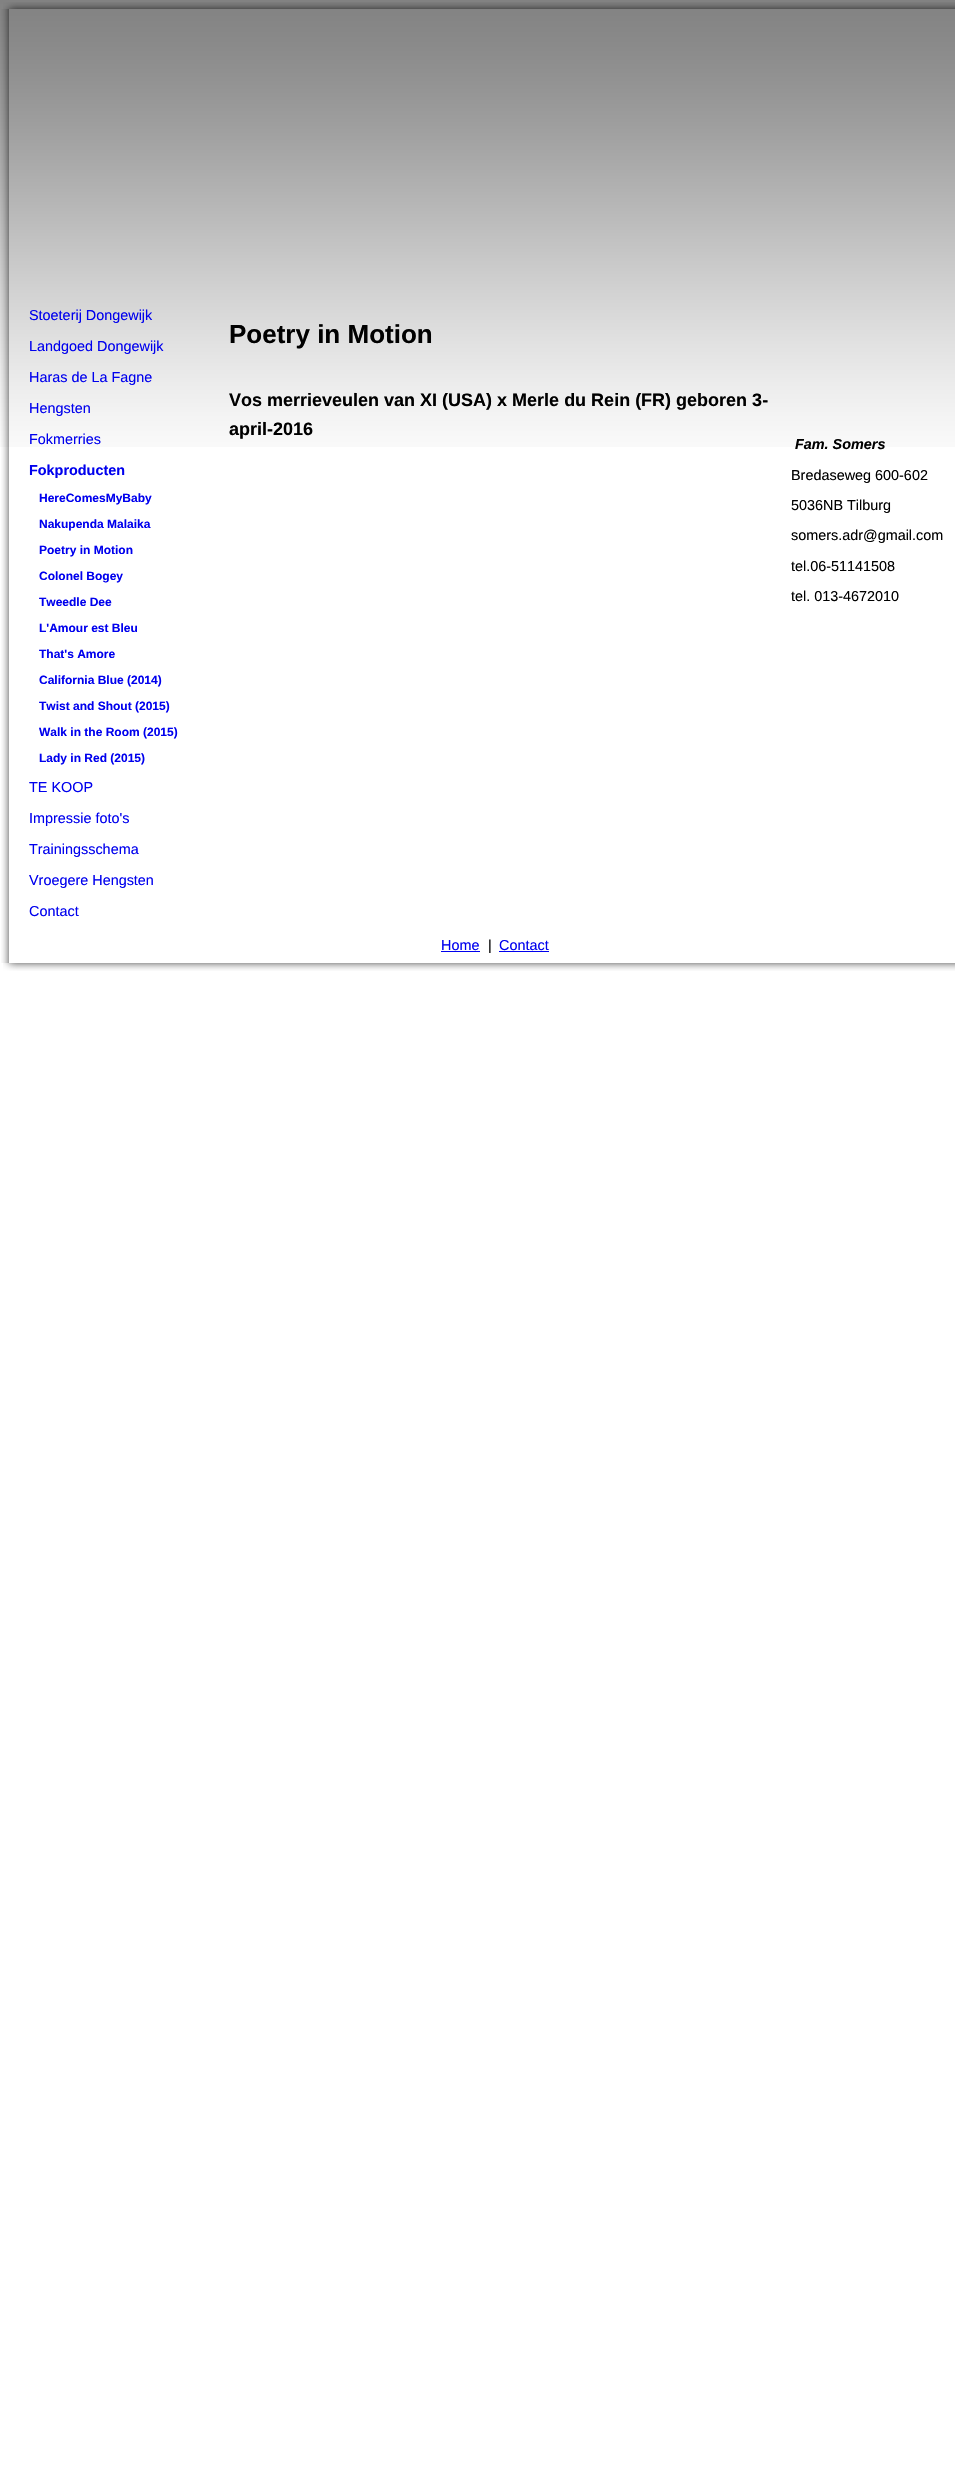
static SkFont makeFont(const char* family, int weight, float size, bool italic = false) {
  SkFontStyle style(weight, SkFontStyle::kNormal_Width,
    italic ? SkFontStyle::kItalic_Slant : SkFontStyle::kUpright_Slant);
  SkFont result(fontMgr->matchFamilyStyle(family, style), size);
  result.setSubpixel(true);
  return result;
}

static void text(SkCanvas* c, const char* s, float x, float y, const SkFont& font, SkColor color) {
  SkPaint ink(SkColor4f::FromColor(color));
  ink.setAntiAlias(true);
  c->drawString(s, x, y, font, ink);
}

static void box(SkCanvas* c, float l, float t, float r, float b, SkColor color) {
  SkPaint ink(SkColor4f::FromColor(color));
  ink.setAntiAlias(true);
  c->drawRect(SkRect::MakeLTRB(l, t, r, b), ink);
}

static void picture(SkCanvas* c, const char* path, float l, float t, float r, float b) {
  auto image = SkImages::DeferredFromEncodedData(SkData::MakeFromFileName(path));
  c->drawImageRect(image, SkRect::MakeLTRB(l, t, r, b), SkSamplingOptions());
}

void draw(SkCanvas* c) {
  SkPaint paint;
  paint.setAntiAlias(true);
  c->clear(0xffffffff);
  picture(c, "img_01.png", 0, 0, 955, 447);
  picture(c, "img_02.png", 3, 2, 955, 9);
  picture(c, "img_03.png", 1, 9, 9, 963);
  SkFont face1 = makeFont("Liberation Sans", 400, 14.4f);
  text(c, "Stoeterij Dongewijk", 29, 320, face1, 0xff0000ee);
  text(c, "Landgoed Dongewijk", 29, 351, face1, 0xff0000ee);
  text(c, "Haras de La Fagne", 29, 382, face1, 0xff0000ee);
  text(c, "Hengsten", 29, 413, face1, 0xff0000ee);
  text(c, "Fokmerries", 29, 444, face1, 0xff0000ee);
  SkFont face2 = makeFont("Liberation Sans", 700, 14.4f);
  text(c, "Fokproducten", 29, 475, face2, 0xff0000ee);
  SkFont face3 = makeFont("Liberation Sans", 700, 12);
  text(c, "HereComesMyBaby", 39, 502, face3, 0xff0000ee);
  text(c, "Nakupenda Malaika", 39, 528, face3, 0xff0000ee);
  text(c, "Poetry in Motion", 39, 554, face3, 0xff0000ee);
  text(c, "Colonel Bogey", 39, 580, face3, 0xff0000ee);
  text(c, "Tweedle Dee", 39, 606, face3, 0xff0000ee);
  text(c, "L'Amour est Bleu", 39, 632, face3, 0xff0000ee);
  text(c, "That's Amore", 39, 658, face3, 0xff0000ee);
  text(c, "California Blue (2014)", 39, 684, face3, 0xff0000ee);
  text(c, "Twist and Shout (2015)", 39, 710, face3, 0xff0000ee);
  text(c, "Walk in the Room (2015)", 39, 736, face3, 0xff0000ee);
  text(c, "Lady in Red (2015)", 39, 762, face3, 0xff0000ee);
  text(c, "TE KOOP", 29, 792, face1, 0xff0000ee);
  text(c, "Impressie foto's", 29, 823, face1, 0xff0000ee);
  text(c, "Trainingsschema", 29, 854, face1, 0xff0000ee);
  text(c, "Vroegere Hengsten", 29, 885, face1, 0xff0000ee);
  text(c, "Contact", 29, 916, face1, 0xff0000ee);
  SkFont face4 = makeFont("Liberation Sans", 700, 26);
  text(c, "Poetry in Motion", 229, 343, face4, 0xff000000);
  SkFont face5 = makeFont("Liberation Sans", 700, 18);
  text(c, "Vos merrieveulen van XI (USA) x Merle du Rein (FR) geboren 3-", 229, 406, face5, 0xff000000);
  text(c, "april-2016", 229, 435, face5, 0xff000000);
  SkFont face6 = makeFont("Liberation Sans", 700, 14.4f, true);
  text(c, "Fam. Somers", 795, 449, face6, 0xff000000);
  text(c, "Bredaseweg 600-602", 791, 480, face1, 0xff000000);
  text(c, "5036NB Tilburg", 791, 510, face1, 0xff000000);
  text(c, "somers.adr@gmail.com", 791, 540, face1, 0xff000000);
  text(c, "tel.06-51141508", 791, 571, face1, 0xff000000);
  text(c, "tel. 013-4672010", 791, 601, face1, 0xff000000);
  text(c, "Home", 441, 950, face1, 0xff0000ee);
  box(c, 441, 951, 480, 952, 0xff0000ee);
  text(c, "|", 488, 950, face1, 0xff000000);
  text(c, "Contact", 499, 950, face1, 0xff0000ee);
  box(c, 499, 951, 549, 952, 0xff0000ee);
  picture(c, "img_04.png", 3, 963, 955, 971);
}
